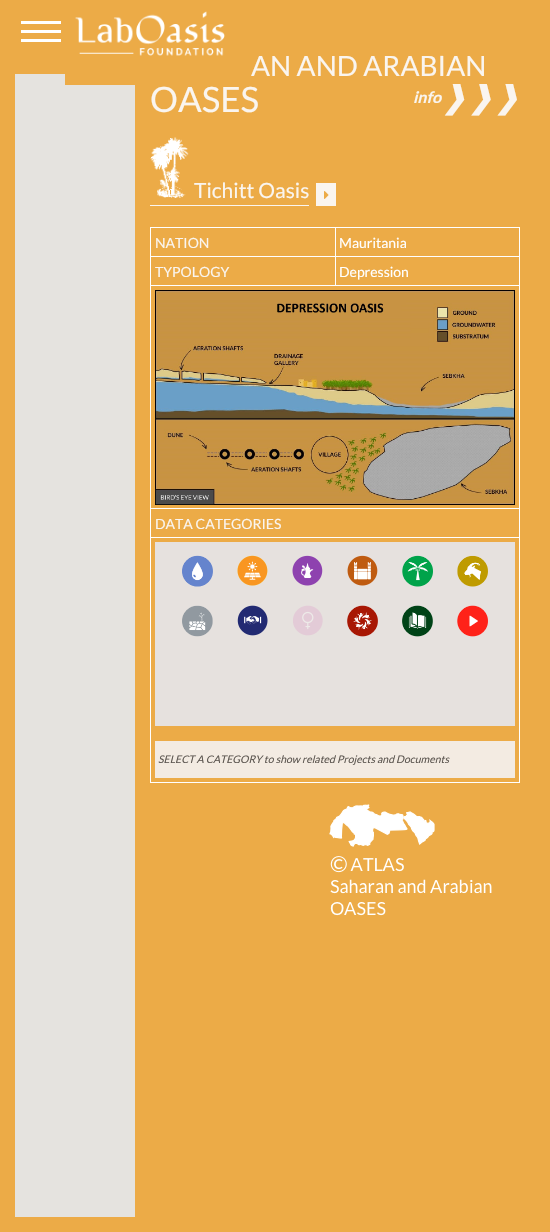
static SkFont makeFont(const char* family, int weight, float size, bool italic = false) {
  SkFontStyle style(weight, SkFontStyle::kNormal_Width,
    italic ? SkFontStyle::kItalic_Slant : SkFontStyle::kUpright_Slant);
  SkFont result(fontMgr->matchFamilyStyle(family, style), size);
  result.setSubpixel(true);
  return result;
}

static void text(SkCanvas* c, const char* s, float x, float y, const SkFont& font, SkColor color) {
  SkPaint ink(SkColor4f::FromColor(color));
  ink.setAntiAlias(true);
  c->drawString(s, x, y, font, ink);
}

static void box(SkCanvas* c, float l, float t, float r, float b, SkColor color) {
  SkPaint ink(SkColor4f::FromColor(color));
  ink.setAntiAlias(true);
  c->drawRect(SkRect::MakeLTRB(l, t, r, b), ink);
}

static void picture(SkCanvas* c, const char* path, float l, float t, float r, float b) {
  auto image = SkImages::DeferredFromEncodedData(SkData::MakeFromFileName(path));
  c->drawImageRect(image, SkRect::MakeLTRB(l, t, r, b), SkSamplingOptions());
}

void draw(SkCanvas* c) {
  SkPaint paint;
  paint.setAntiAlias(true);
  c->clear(0xffecab47);
  box(c, 21, 39, 61, 42, 0xffffffff);
  box(c, 21, 21, 61, 24, 0xffffffff);
  box(c, 21, 30, 61, 33, 0xffffffff);
  picture(c, "img_01.png", 75, 11, 225, 56);
  box(c, 15, 74, 135, 1217, 0xffe5e3df);
  box(c, 65, 74, 135, 85, 0xffecab47);
  SkFont face1 = makeFont("Lato", 400, 28);
  text(c, "AN AND ARABIAN", 251, 76, face1, 0xfffaf5ef);
  SkFont face2 = makeFont("Lato", 400, 35);
  text(c, "OASES", 150, 112, face2, 0xfffaf5ef);
  SkFont face3 = makeFont("Lato", 700, 16, true);
  text(c, "info", 413, 103, face3, 0xfffaf5ef);
  SkFont face4 = makeFont("DejaVu Sans", 400, 31.5f, true);
  text(c, "❱❱❱", 441, 108, face4, 0xfffaf5ef);
  box(c, 150, 205, 309, 206, 0xfffaf5ef);
  picture(c, "img_02.png", 150, 137, 189, 198);
  SkFont face5 = makeFont("Lato", 400, 21);
  text(c, "Tichitt Oasis", 194, 198, face5, 0xfffaf5ef);
  box(c, 316, 183, 336, 206, 0xfffaf5ef);
  picture(c, "img_03.png", 324, 191, 329, 199);
  box(c, 150, 227, 520, 228, 0xffffffff);
  box(c, 150, 227, 151, 256, 0xffffffff);
  SkFont face6 = makeFont("Lato", 400, 14);
  text(c, "NATION", 155, 248, face6, 0xfffaf5ef);
  box(c, 519, 227, 520, 256, 0xffffffff);
  box(c, 335, 227, 336, 256, 0xffffffff);
  text(c, "Mauritania", 339, 248, face6, 0xffffffff);
  box(c, 150, 256, 520, 257, 0xffffffff);
  box(c, 150, 256, 151, 285, 0xffffffff);
  text(c, "TYPOLOGY", 155, 277, face6, 0xfffaf5ef);
  box(c, 519, 256, 520, 285, 0xffffffff);
  box(c, 335, 256, 336, 285, 0xffffffff);
  text(c, "Depression", 339, 277, face6, 0xffffffff);
  box(c, 150, 285, 520, 286, 0xffffffff);
  box(c, 519, 285, 520, 508, 0xffffffff);
  box(c, 150, 285, 151, 508, 0xffffffff);
  picture(c, "img_04.png", 155, 290, 515, 505);
  box(c, 150, 508, 520, 509, 0xffffffff);
  box(c, 519, 508, 520, 537, 0xffffffff);
  box(c, 150, 508, 151, 537, 0xffffffff);
  text(c, "DATA CATEGORIES", 155, 529, face6, 0xfffaf5ef);
  paint.setStyle(SkPaint::kStroke_Style);
  paint.setStrokeWidth(1);
  paint.setColor(0xffffffff);
  c->drawRect(SkRect::MakeLTRB(150.5f, 537.5f, 519.5f, 782.5f), paint);
  box(c, 155, 542, 515, 726, 0xffe6e1de);
  picture(c, "img_05.png", 182, 555, 213, 587);
  picture(c, "img_06.png", 237, 555, 268, 586);
  picture(c, "img_07.png", 292, 555, 323, 586);
  picture(c, "img_08.png", 347, 555, 378, 586);
  picture(c, "img_09.png", 402, 555, 433, 587);
  picture(c, "img_10.png", 457, 555, 488, 587);
  picture(c, "img_11.png", 182, 605, 213, 637);
  picture(c, "img_12.png", 237, 605, 268, 636);
  picture(c, "img_13.png", 293, 605, 323, 636);
  picture(c, "img_14.png", 347, 605, 378, 637);
  picture(c, "img_15.png", 402, 605, 433, 637);
  picture(c, "img_16.png", 457, 605, 488, 637);
  box(c, 155, 741, 515, 778, 0xfff3ebe2);
  SkFont face7 = makeFont("Lato", 400, 10.5f, true);
  text(c, "SELECT A CATEGORY to show related Projects and Documents", 158, 763, face7, 0xff5d5751);
  picture(c, "img_17.png", 329, 804, 492, 916);
}
